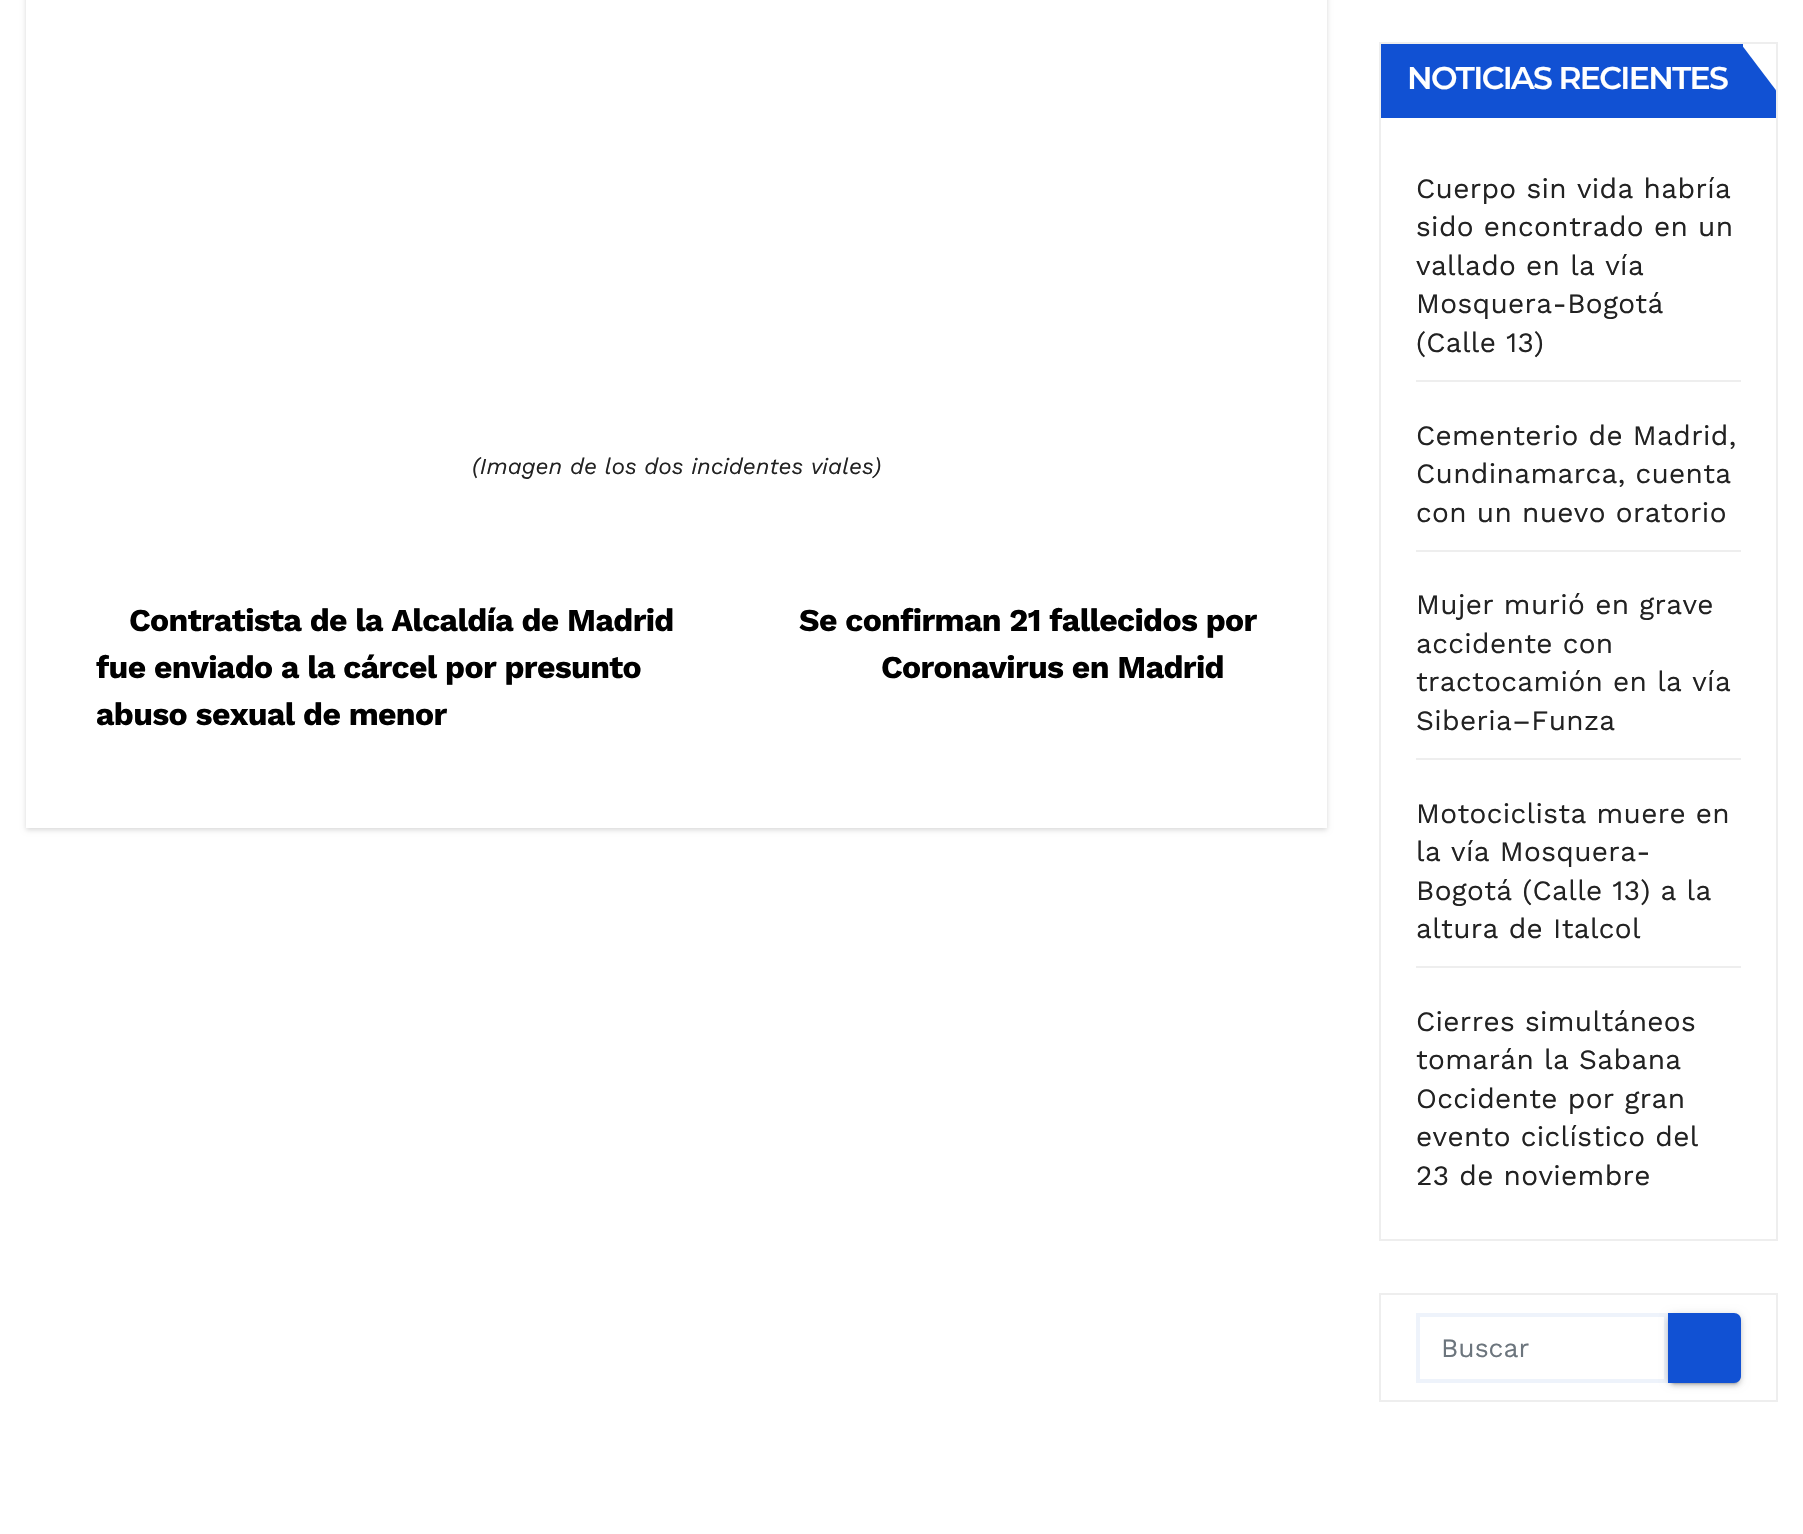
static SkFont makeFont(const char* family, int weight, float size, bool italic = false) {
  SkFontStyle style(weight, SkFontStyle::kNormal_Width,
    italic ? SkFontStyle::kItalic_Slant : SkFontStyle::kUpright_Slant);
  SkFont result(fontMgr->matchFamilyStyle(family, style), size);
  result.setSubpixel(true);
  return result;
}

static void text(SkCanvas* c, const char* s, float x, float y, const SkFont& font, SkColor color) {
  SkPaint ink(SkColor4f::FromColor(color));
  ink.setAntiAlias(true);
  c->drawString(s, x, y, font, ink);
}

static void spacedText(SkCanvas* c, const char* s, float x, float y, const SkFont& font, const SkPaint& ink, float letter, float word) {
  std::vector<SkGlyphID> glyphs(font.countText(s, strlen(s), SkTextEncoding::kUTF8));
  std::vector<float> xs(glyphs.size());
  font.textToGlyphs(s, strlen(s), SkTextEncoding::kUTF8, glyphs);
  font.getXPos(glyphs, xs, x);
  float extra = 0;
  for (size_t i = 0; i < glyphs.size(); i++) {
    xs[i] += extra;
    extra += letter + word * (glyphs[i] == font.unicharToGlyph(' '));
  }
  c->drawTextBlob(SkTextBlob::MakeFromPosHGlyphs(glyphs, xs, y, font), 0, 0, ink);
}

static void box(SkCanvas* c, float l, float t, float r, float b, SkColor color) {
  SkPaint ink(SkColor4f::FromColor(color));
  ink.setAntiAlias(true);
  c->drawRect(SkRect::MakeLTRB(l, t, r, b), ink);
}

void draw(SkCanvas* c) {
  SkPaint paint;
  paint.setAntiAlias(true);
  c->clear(0xffffffff);
  paint.setColor(0x26000000);
  paint.setMaskFilter(SkMaskFilter::MakeBlur(kNormal_SkBlurStyle, 2.5f));
  c->drawRect(SkRect::MakeLTRB(26, -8, 1327, 830), paint);
  paint.setMaskFilter(nullptr);
  box(c, 26, 0, 1327, 828, 0xffffffff);
  SkFont face1 = makeFont("Work Sans", 400, 22.75f, true);
  text(c, "(Imagen de los dos incidentes viales)", 472, 474, face1, 0xff222222);
  SkFont face2 = makeFont("Work Sans", 700, 31.9f);
  paint.setColor(0xff000000);
  spacedText(c, "Contratista de la Alcaldía de Madrid", 129, 631, face2, paint, -0.65f, 0);
  spacedText(c, "fue enviado a la cárcel por presunto", 96, 678, face2, paint, -0.65f, 0);
  spacedText(c, "abuso sexual de menor", 96, 725, face2, paint, -0.65f, 0);
  spacedText(c, "Se confirman 21 fallecidos por", 799, 631, face2, paint, -0.65f, 0);
  spacedText(c, "Coronavirus en Madrid", 881, 678, face2, paint, -0.65f, 0);
  paint.setStyle(SkPaint::kStroke_Style);
  paint.setStrokeWidth(2);
  paint.setColor(0xffeeeeee);
  c->drawRect(SkRect::MakeLTRB(1380, 43, 1777, 1240), paint);
  box(c, 1381, 114, 1776, 118, 0xff1151d3);
  box(c, 1381, 44, 1743, 114, 0xff1151d3);
  SkFont face3 = makeFont("Montserrat", 600, 31.5f);
  paint.setStyle(SkPaint::kFill_Style);
  paint.setColor(0xffffffff);
  spacedText(c, "NOTICIAS RECIENTES", 1407, 89, face3, paint, -1.6f, 0);
  c->save();
  c->clipRect(SkRect::MakeLTRB(1381, 44, 1776, 1239));
  paint.setColor(0xff1151d3);
  c->drawPath(SkPathBuilder().moveTo(1741, 114).lineTo(1741, 44).lineTo(1794, 114).close().detach(), paint);
  c->restore();
  box(c, 1416, 380, 1741, 382, 0xffeeeeee);
  SkFont face4 = makeFont("Work Sans", 400, 28);
  paint.setColor(0xff222222);
  spacedText(c, "Cuerpo sin vida habría", 1416, 198, face4, paint, 0.35f, 0);
  spacedText(c, "sido encontrado en un", 1416, 236, face4, paint, 0.35f, 0);
  spacedText(c, "vallado en la vía", 1416, 275, face4, paint, 0.35f, 0);
  spacedText(c, "Mosquera-Bogotá", 1416, 313, face4, paint, 0.35f, 0);
  spacedText(c, "(Calle 13)", 1416, 352, face4, paint, 0.35f, 0);
  box(c, 1416, 550, 1741, 552, 0xffeeeeee);
  spacedText(c, "Cementerio de Madrid,", 1416, 445, face4, paint, 0.35f, 0);
  spacedText(c, "Cundinamarca, cuenta", 1416, 483, face4, paint, 0.35f, 0);
  spacedText(c, "con un nuevo oratorio", 1416, 522, face4, paint, 0.35f, 0);
  box(c, 1416, 758, 1741, 760, 0xffeeeeee);
  spacedText(c, "Mujer murió en grave", 1416, 614, face4, paint, 0.35f, 0);
  spacedText(c, "accidente con", 1416, 653, face4, paint, 0.35f, 0);
  spacedText(c, "tractocamión en la vía", 1416, 691, face4, paint, 0.35f, 0);
  spacedText(c, "Siberia–Funza", 1416, 730, face4, paint, 0.35f, 0);
  box(c, 1416, 966, 1741, 968, 0xffeeeeee);
  spacedText(c, "Motociclista muere en", 1416, 823, face4, paint, 0.35f, 0);
  spacedText(c, "la vía Mosquera-", 1416, 861, face4, paint, 0.35f, 0);
  spacedText(c, "Bogotá (Calle 13) a la", 1416, 900, face4, paint, 0.35f, 0);
  spacedText(c, "altura de Italcol", 1416, 938, face4, paint, 0.35f, 0);
  spacedText(c, "Cierres simultáneos", 1416, 1031, face4, paint, 0.35f, 0);
  spacedText(c, "tomarán la Sabana", 1416, 1069, face4, paint, 0.35f, 0);
  spacedText(c, "Occidente por gran", 1416, 1108, face4, paint, 0.35f, 0);
  spacedText(c, "evento ciclístico del", 1416, 1146, face4, paint, 0.35f, 0);
  spacedText(c, "23 de noviembre", 1416, 1185, face4, paint, 0.35f, 0);
  paint.setStyle(SkPaint::kStroke_Style);
  paint.setColor(0xffeeeeee);
  c->drawRect(SkRect::MakeLTRB(1380, 1294, 1777, 1401), paint);
  paint.setStrokeWidth(4);
  paint.setColor(0xffeef3fb);
  c->drawRect(SkRect::MakeLTRB(1418, 1315, 1666, 1381), paint);
  SkFont face5 = makeFont("Work Sans", 400, 26.5f);
  text(c, "Buscar", 1441, 1357, face5, 0xff6c757d);
  paint.setStyle(SkPaint::kFill_Style);
  paint.setColor(0x1f000000);
  paint.setMaskFilter(SkMaskFilter::MakeBlur(kNormal_SkBlurStyle, 4.5f));
  c->drawRoundRect(SkRect::MakeLTRB(1668, 1314, 1741, 1384), 7, 7, paint);
  paint.setMaskFilter(nullptr);
  paint.setColor(0x33000000);
  paint.setMaskFilter(SkMaskFilter::MakeBlur(kNormal_SkBlurStyle, 1));
  c->drawRoundRect(SkRect::MakeLTRB(1671, 1321, 1738, 1384), 4, 4, paint);
  paint.setMaskFilter(nullptr);
  paint.setColor(0x24000000);
  paint.setMaskFilter(SkMaskFilter::MakeBlur(kNormal_SkBlurStyle, 2));
  c->drawRoundRect(SkRect::MakeLTRB(1668, 1316, 1741, 1386), 7, 7, paint);
  paint.setMaskFilter(nullptr);
  paint.setColor(0xff1151d3);
  c->drawPath(SkPathBuilder().moveTo(1668, 1313).lineTo(1734, 1313).cubicTo(1738, 1313, 1741, 1316, 1741, 1320).lineTo(1741, 1376).cubicTo(1741, 1380, 1738, 1383, 1734, 1383).lineTo(1668, 1383).close().detach(), paint);
}
